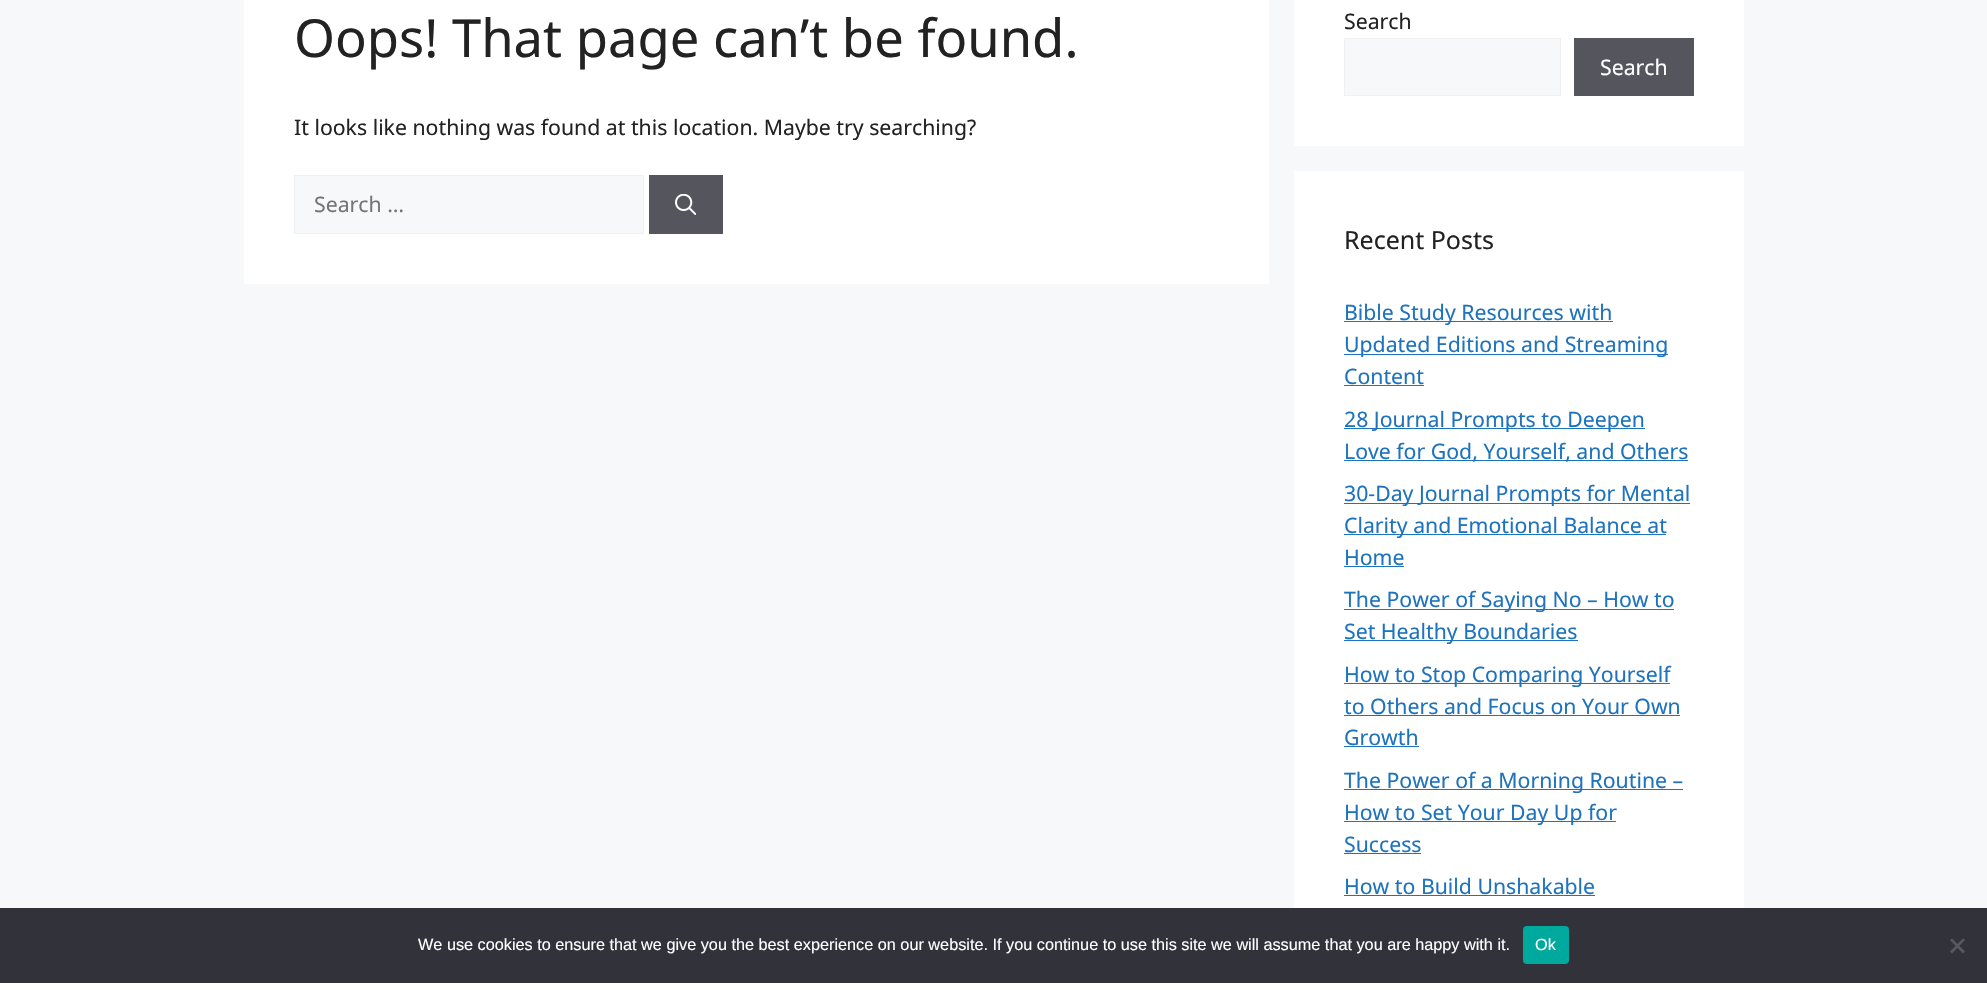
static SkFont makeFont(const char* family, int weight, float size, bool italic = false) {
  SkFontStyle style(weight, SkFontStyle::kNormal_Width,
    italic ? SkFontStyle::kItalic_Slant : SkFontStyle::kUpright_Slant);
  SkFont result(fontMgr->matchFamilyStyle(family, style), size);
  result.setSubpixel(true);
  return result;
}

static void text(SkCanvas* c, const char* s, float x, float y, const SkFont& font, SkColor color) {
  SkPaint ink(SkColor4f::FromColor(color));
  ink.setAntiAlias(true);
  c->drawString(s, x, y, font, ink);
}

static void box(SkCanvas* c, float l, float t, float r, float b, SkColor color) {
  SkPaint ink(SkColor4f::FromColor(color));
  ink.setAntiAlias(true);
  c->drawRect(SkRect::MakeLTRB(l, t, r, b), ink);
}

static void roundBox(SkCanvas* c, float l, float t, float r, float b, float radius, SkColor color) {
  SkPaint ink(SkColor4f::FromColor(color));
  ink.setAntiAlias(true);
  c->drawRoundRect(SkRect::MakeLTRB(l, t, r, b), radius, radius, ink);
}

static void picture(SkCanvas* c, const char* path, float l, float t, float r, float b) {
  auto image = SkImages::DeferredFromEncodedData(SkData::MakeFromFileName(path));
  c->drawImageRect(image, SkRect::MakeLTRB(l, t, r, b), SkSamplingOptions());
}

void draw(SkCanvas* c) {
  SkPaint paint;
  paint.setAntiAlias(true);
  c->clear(0xfff7f8f9);
  box(c, 244, 0, 1269, 284, 0xffffffff);
  SkFont face1 = makeFont("Noto Sans", 400, 52.5f);
  text(c, "Oops! That page can’t be found.", 294, 57, face1, 0xff222222);
  SkFont face2 = makeFont("Noto Sans", 400, 21.25f);
  text(c, "It looks like nothing was found at this location. Maybe try searching?", 294, 135, face2, 0xff222222);
  paint.setColor(0xfff7f8f9);
  c->drawRect(SkRect::MakeLTRB(294.5f, 175.5f, 643.5f, 233.5f), paint);
  paint.setStyle(SkPaint::kStroke_Style);
  paint.setStrokeWidth(1);
  paint.setColor(0xfff0f0f0);
  c->drawRect(SkRect::MakeLTRB(294.5f, 175.5f, 643.5f, 233.5f), paint);
  text(c, "Search …", 314, 212, face2, 0xff757575);
  box(c, 649, 175, 723, 234, 0xff55555e);
  picture(c, "img_01.png", 675, 194, 696, 215);
  box(c, 1294, 0, 1744, 146, 0xffffffff);
  text(c, "Search", 1344, 29, face2, 0xff222222);
  paint.setStyle(SkPaint::kFill_Style);
  paint.setColor(0xfff7f8f9);
  c->drawRect(SkRect::MakeLTRB(1344.5f, 38.5f, 1560.5f, 95.5f), paint);
  paint.setStyle(SkPaint::kStroke_Style);
  paint.setColor(0xfff0f0f0);
  c->drawRect(SkRect::MakeLTRB(1344.5f, 38.5f, 1560.5f, 95.5f), paint);
  box(c, 1574, 38, 1694, 96, 0xff55555e);
  text(c, "Search", 1600, 75, face2, 0xffffffff);
  box(c, 1294, 171, 1744, 908, 0xffffffff);
  SkFont face3 = makeFont("Noto Sans", 400, 25);
  text(c, "Recent Posts", 1344, 249, face3, 0xff222222);
  box(c, 1344, 321, 1613, 322, 0xff1e73be);
  text(c, "Bible Study Resources with", 1344, 320, face2, 0xff1e73be);
  box(c, 1344, 354, 1668, 355, 0xff1e73be);
  text(c, "Updated Editions and Streaming", 1344, 352, face2, 0xff1e73be);
  text(c, "Content", 1344, 384, face2, 0xff1e73be);
  box(c, 1344, 385, 1424, 386, 0xff1e73be);
  box(c, 1344, 428, 1645, 429, 0xff1e73be);
  text(c, "28 Journal Prompts to Deepen", 1344, 427, face2, 0xff1e73be);
  box(c, 1344, 460, 1688, 461, 0xff1e73be);
  text(c, "Love for God, Yourself, and Others", 1344, 459, face2, 0xff1e73be);
  box(c, 1344, 503, 1690, 504, 0xff1e73be);
  text(c, "30-Day Journal Prompts for Mental", 1344, 501, face2, 0xff1e73be);
  box(c, 1344, 534, 1666, 535, 0xff1e73be);
  text(c, "Clarity and Emotional Balance at", 1344, 533, face2, 0xff1e73be);
  text(c, "Home", 1344, 565, face2, 0xff1e73be);
  box(c, 1344, 566, 1404, 567, 0xff1e73be);
  box(c, 1344, 609, 1674, 610, 0xff1e73be);
  text(c, "The Power of Saying No – How to", 1344, 607, face2, 0xff1e73be);
  box(c, 1344, 640, 1578, 641, 0xff1e73be);
  text(c, "Set Healthy Boundaries", 1344, 639, face2, 0xff1e73be);
  box(c, 1344, 683, 1670, 684, 0xff1e73be);
  text(c, "How to Stop Comparing Yourself", 1344, 682, face2, 0xff1e73be);
  text(c, "to Others and Focus on Your Own", 1344, 714, face2, 0xff1e73be);
  box(c, 1344, 715, 1680, 716, 0xff1e73be);
  text(c, "Growth", 1344, 745, face2, 0xff1e73be);
  box(c, 1344, 746, 1419, 747, 0xff1e73be);
  box(c, 1344, 789, 1683, 790, 0xff1e73be);
  text(c, "The Power of a Morning Routine –", 1344, 788, face2, 0xff1e73be);
  box(c, 1344, 821, 1616, 822, 0xff1e73be);
  text(c, "How to Set Your Day Up for", 1344, 820, face2, 0xff1e73be);
  text(c, "Success", 1344, 852, face2, 0xff1e73be);
  box(c, 1344, 853, 1421, 854, 0xff1e73be);
  text(c, "How to Build Unshakable", 1344, 894, face2, 0xff1e73be);
  box(c, 1344, 895, 1595, 896, 0xff1e73be);
  box(c, 0, 908, 1987, 983, 0xff32323a);
  SkFont face4 = makeFont("Liberation Sans", 400, 16.25f);
  text(c, "We use cookies to ensure that we give you the best experience on our website. If you continue to use this site we will assume that you are happy with it.", 418, 950, face4, 0xffffffff);
  roundBox(c, 1523, 926, 1569, 964, 4, 0xff00a99d);
  text(c, "Ok", 1535, 950, face4, 0xffffffff);
  paint.setStyle(SkPaint::kFill_Style);
  paint.setColor(0xff59595d);
  c->drawPath(SkPathBuilder().moveTo(1963, 938.5f).lineTo(1965, 940).lineTo(1952, 953.5f).lineTo(1950, 951.5f).close().detach(), paint);
  c->drawPath(SkPathBuilder().moveTo(1950, 940).lineTo(1952, 938.5f).lineTo(1965, 951.5f).lineTo(1963, 953.5f).close().detach(), paint);
}
